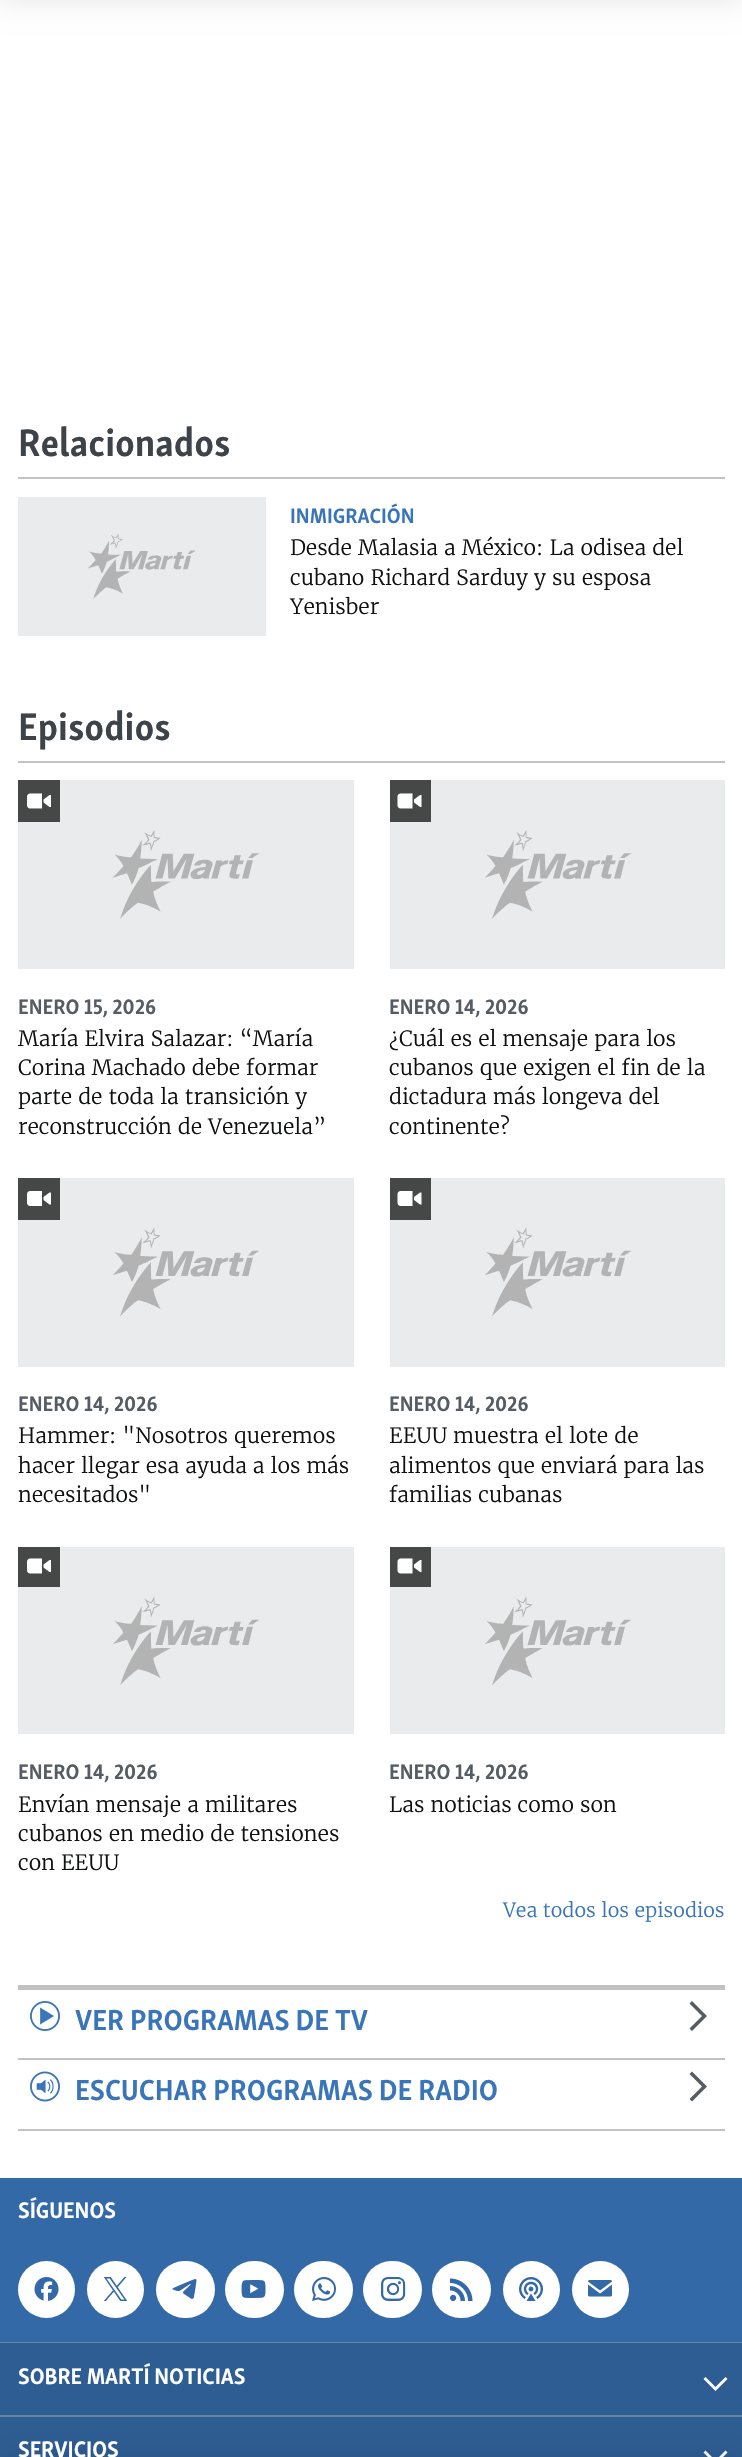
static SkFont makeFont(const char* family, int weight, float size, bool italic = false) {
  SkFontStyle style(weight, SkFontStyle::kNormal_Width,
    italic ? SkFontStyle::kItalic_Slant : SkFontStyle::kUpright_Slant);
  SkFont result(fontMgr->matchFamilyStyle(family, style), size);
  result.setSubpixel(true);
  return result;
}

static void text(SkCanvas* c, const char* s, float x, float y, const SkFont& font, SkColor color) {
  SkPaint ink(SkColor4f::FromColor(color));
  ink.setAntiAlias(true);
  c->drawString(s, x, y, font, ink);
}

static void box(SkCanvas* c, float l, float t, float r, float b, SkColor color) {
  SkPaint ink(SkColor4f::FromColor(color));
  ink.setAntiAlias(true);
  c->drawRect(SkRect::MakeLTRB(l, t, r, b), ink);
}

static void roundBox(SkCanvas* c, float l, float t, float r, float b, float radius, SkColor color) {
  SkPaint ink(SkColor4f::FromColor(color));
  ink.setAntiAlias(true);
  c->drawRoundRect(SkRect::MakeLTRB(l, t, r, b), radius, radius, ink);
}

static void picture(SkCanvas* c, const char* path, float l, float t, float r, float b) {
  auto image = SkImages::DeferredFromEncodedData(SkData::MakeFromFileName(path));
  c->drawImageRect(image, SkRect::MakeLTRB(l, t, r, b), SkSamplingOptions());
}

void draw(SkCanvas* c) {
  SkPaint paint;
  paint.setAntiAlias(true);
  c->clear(0xffffffff);
  paint.setColor(0x1a000000);
  paint.setMaskFilter(SkMaskFilter::MakeBlur(kNormal_SkBlurStyle, 15));
  c->drawRect(SkRect::MakeLTRB(0, -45, 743, 0), paint);
  paint.setMaskFilter(nullptr);
  box(c, 0, 2343, 742, 2415, 0xff2e5d93);
  box(c, 0, 2415, 742, 2417, 0xff6c85a2);
  box(c, 0, 2417, 742, 2457, 0xff2e5d93);
  paint.setColor(0xffffffff);
  c->drawPath(SkPathBuilder().moveTo(703.5f, 2452.5f).lineTo(715.5f, 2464.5f).lineTo(727.5f, 2452.5f).lineTo(725.5f, 2450.5f).lineTo(715.5f, 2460.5f).lineTo(705.5f, 2450.5f).close().detach(), paint);
  paint.setColor(0x1a000000);
  paint.setMaskFilter(SkMaskFilter::MakeBlur(kNormal_SkBlurStyle, 15));
  c->drawRect(SkRect::MakeLTRB(0, 2457, 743, 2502), paint);
  paint.setMaskFilter(nullptr);
  box(c, 18, 477, 725, 479, 0xffc2c2c2);
  SkFont face1 = makeFont("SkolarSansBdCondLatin", 700, 39.5f);
  text(c, "Relacionados", 18, 456, face1, 0xff3d4348);
  box(c, 18, 497, 266, 636, 0xffe9ebec);
  picture(c, "img_01.png", 88, 533, 196, 599);
  SkFont face2 = makeFont("SkolarSansBdCondLatin", 700, 21.5f);
  text(c, "INMIGRACIÓN", 290, 523, face2, 0xff3a75ba);
  SkFont face3 = makeFont("Merriweather", 300, 21);
  text(c, "Desde Malasia a México: La odisea del", 290, 555, face3, 0xff0f1011);
  text(c, "cubano Richard Sarduy y su esposa", 290, 585, face3, 0xff0f1011);
  text(c, "Yenisber", 290, 614, face3, 0xff0f1011);
  box(c, 18, 761, 725, 763, 0xffc2c2c2);
  text(c, "Episodios", 18, 740, face1, 0xff3d4348);
  box(c, 18, 780, 354, 969, 0xffe9ebec);
  picture(c, "img_02.png", 112, 830, 260, 919);
  box(c, 18, 780, 60, 822, 0xff464747);
  picture(c, "img_03.png", 27, 793, 51, 809);
  text(c, "ENERO 15, 2026", 18, 1014, face2, 0xff555c63);
  text(c, "María Elvira Salazar: “María", 18, 1046, face3, 0xff0f1011);
  text(c, "Corina Machado debe formar", 18, 1075, face3, 0xff0f1011);
  text(c, "parte de toda la transición y", 18, 1104, face3, 0xff0f1011);
  text(c, "reconstrucción de Venezuela”", 18, 1134, face3, 0xff0f1011);
  box(c, 390, 780, 725, 969, 0xffe9ebec);
  picture(c, "img_04.png", 484, 830, 632, 919);
  box(c, 390, 780, 431, 822, 0xff464747);
  picture(c, "img_05.png", 397, 793, 422, 809);
  text(c, "ENERO 14, 2026", 389, 1014, face2, 0xff555c63);
  text(c, "¿Cuál es el mensaje para los", 389, 1046, face3, 0xff0f1011);
  text(c, "cubanos que exigen el fin de la", 389, 1075, face3, 0xff0f1011);
  text(c, "dictadura más longeva del", 389, 1104, face3, 0xff0f1011);
  text(c, "continente?", 389, 1134, face3, 0xff0f1011);
  box(c, 18, 1178, 354, 1367, 0xffe9ebec);
  picture(c, "img_06.png", 113, 1227, 260, 1316);
  box(c, 18, 1178, 60, 1220, 0xff464747);
  picture(c, "img_07.png", 27, 1191, 51, 1206);
  text(c, "ENERO 14, 2026", 18, 1411, face2, 0xff555c63);
  text(c, "Hammer: \"Nosotros queremos", 18, 1443, face3, 0xff0f1011);
  text(c, "hacer llegar esa ayuda a los más", 18, 1473, face3, 0xff0f1011);
  text(c, "necesitados\"", 18, 1502, face3, 0xff0f1011);
  box(c, 390, 1178, 725, 1367, 0xffe9ebec);
  picture(c, "img_08.png", 485, 1227, 632, 1316);
  box(c, 390, 1178, 431, 1220, 0xff464747);
  picture(c, "img_09.png", 397, 1191, 422, 1206);
  text(c, "ENERO 14, 2026", 389, 1411, face2, 0xff555c63);
  text(c, "EEUU muestra el lote de", 389, 1443, face3, 0xff0f1011);
  text(c, "alimentos que enviará para las", 389, 1473, face3, 0xff0f1011);
  text(c, "familias cubanas", 389, 1502, face3, 0xff0f1011);
  box(c, 18, 1547, 354, 1734, 0xffe9ebec);
  picture(c, "img_06.png", 113, 1596, 260, 1685);
  box(c, 18, 1547, 60, 1587, 0xff464747);
  picture(c, "img_03.png", 27, 1558, 51, 1574);
  text(c, "ENERO 14, 2026", 18, 1779, face2, 0xff555c63);
  text(c, "Envían mensaje a militares", 18, 1812, face3, 0xff0f1011);
  text(c, "cubanos en medio de tensiones", 18, 1841, face3, 0xff0f1011);
  text(c, "con EEUU", 18, 1870, face3, 0xff0f1011);
  box(c, 390, 1547, 725, 1734, 0xffe9ebec);
  picture(c, "img_08.png", 485, 1596, 632, 1685);
  box(c, 390, 1547, 431, 1587, 0xff464747);
  picture(c, "img_05.png", 397, 1558, 422, 1574);
  text(c, "ENERO 14, 2026", 389, 1779, face2, 0xff555c63);
  text(c, "Las noticias como son", 389, 1812, face3, 0xff0f1011);
  SkFont face4 = makeFont("Merriweather", 300, 19.5f);
  text(c, "Vea todos los episodios", 503, 1917, face4, 0xff3a75ba);
  box(c, 18, 1985, 725, 1990, 0xffc2c2c2);
  box(c, 18, 2058, 725, 2060, 0xffc2c2c2);
  picture(c, "img_10.png", 30, 2001, 60, 2031);
  SkFont face5 = makeFont("SkolarSansBdCondLatin", 700, 29.75f);
  text(c, "VER PROGRAMAS DE TV", 75, 2030, face5, 0xff3a75ba);
  paint.setColor(0xff555c63);
  c->drawPath(SkPathBuilder().moveTo(692, 2031).lineTo(707, 2016).lineTo(692, 2001).lineTo(689.5f, 2003.5f).lineTo(702, 2016).lineTo(689.5f, 2028.5f).close().detach(), paint);
  box(c, 18, 2129, 725, 2131, 0xffc2c2c2);
  picture(c, "img_11.png", 30, 2071, 60, 2102);
  text(c, "ESCUCHAR PROGRAMAS DE RADIO", 75, 2100, face5, 0xff3a75ba);
  c->drawPath(SkPathBuilder().moveTo(692, 2101.5f).lineTo(707, 2086.5f).lineTo(692, 2071.5f).lineTo(689.5f, 2074).lineTo(702, 2086.5f).lineTo(689.5f, 2099).close().detach(), paint);
  box(c, 0, 2178, 742, 2342, 0xff3469a7);
  SkFont face6 = makeFont("SkolarSansBdCondLatin", 700, 23);
  text(c, "SÍGUENOS", 18, 2218, face6, 0xffffffff);
  paint.setColor(0xffffffff);
  c->drawCircle(46.5f, 2289.5f, 28.5f, paint);
  picture(c, "img_12.png", 34, 2277, 59, 2301);
  c->drawCircle(115.5f, 2289.5f, 28.5f, paint);
  picture(c, "img_13.png", 103, 2277, 128, 2301);
  roundBox(c, 156, 2261, 215, 2318, 28.5f, 0xffffffff);
  picture(c, "img_14.png", 172, 2279, 197, 2299);
  roundBox(c, 225, 2261, 284, 2318, 28.5f, 0xffffffff);
  picture(c, "img_15.png", 241, 2280, 266, 2298);
  roundBox(c, 294, 2261, 353, 2318, 28.5f, 0xffffffff);
  picture(c, "img_16.png", 312, 2277, 336, 2301);
  roundBox(c, 363, 2261, 422, 2318, 28.5f, 0xffffffff);
  picture(c, "img_17.png", 381, 2277, 406, 2301);
  roundBox(c, 432, 2261, 491, 2318, 28.5f, 0xffffffff);
  picture(c, "img_18.png", 450, 2278, 473, 2301);
  c->drawCircle(531.5f, 2289.5f, 28.5f, paint);
  picture(c, "img_19.png", 519, 2277, 543, 2301);
  c->drawCircle(600.5f, 2289.5f, 28.5f, paint);
  picture(c, "img_20.png", 588, 2280, 612, 2297);
  box(c, 0, 2342, 742, 2343, 0xff6c85a2);
  text(c, "SOBRE MARTÍ NOTICIAS", 18, 2384, face6, 0xffffffff);
  c->drawPath(SkPathBuilder().moveTo(703.5f, 2379).lineTo(715.5f, 2391).lineTo(727.5f, 2379).lineTo(725.5f, 2377).lineTo(715.5f, 2387).lineTo(705.5f, 2377).close().detach(), paint);
  text(c, "SERVICIOS", 18, 2457, face6, 0xffffffff);
}
